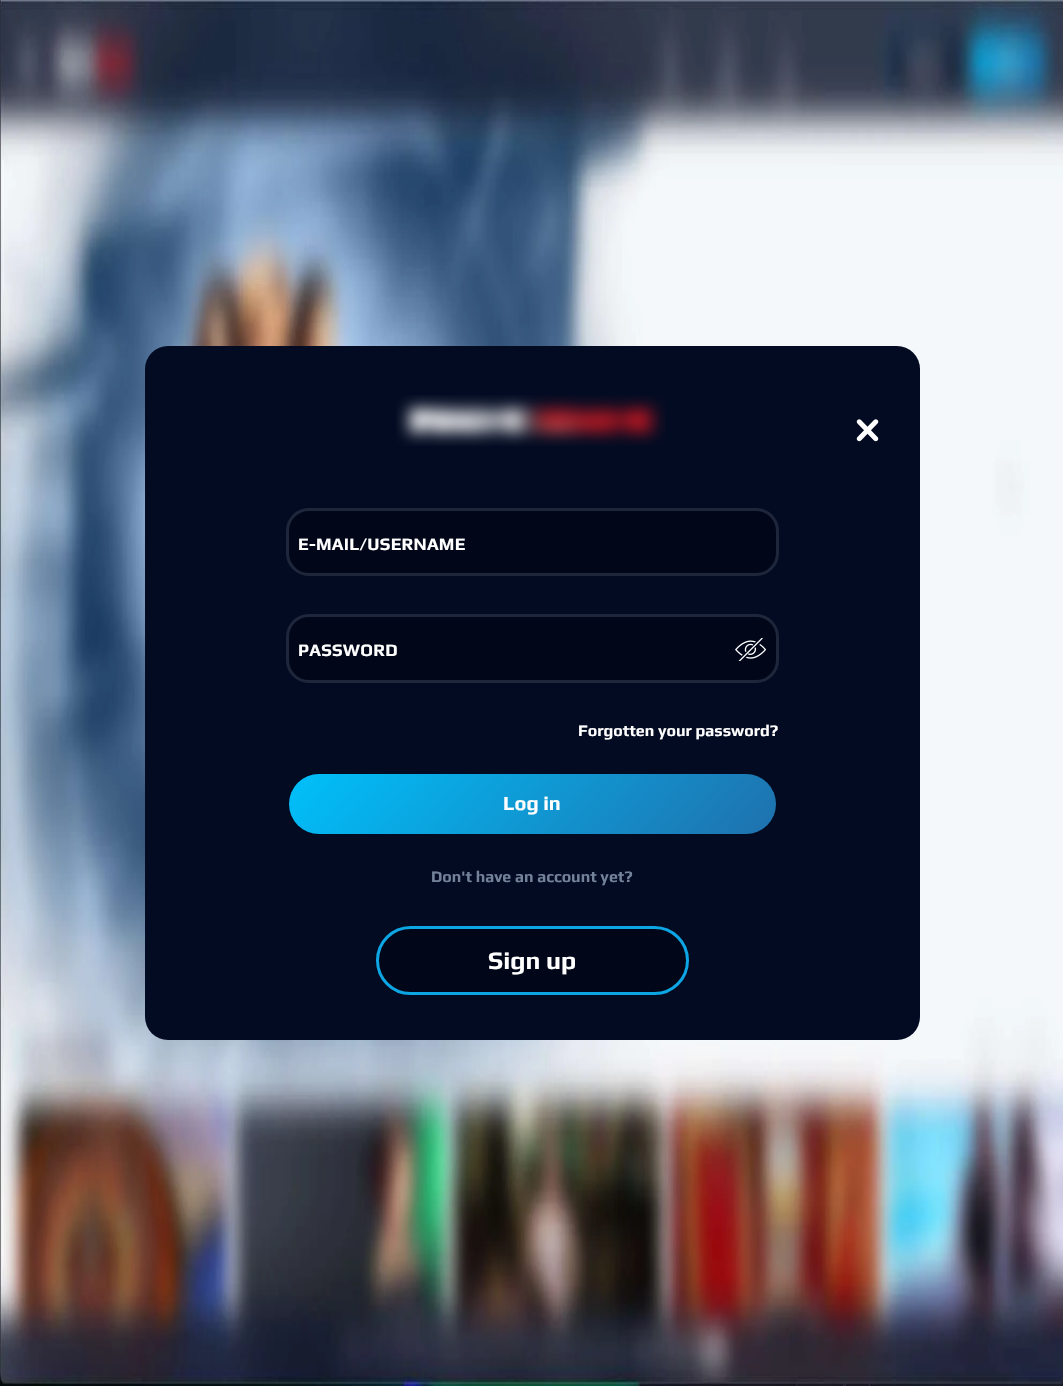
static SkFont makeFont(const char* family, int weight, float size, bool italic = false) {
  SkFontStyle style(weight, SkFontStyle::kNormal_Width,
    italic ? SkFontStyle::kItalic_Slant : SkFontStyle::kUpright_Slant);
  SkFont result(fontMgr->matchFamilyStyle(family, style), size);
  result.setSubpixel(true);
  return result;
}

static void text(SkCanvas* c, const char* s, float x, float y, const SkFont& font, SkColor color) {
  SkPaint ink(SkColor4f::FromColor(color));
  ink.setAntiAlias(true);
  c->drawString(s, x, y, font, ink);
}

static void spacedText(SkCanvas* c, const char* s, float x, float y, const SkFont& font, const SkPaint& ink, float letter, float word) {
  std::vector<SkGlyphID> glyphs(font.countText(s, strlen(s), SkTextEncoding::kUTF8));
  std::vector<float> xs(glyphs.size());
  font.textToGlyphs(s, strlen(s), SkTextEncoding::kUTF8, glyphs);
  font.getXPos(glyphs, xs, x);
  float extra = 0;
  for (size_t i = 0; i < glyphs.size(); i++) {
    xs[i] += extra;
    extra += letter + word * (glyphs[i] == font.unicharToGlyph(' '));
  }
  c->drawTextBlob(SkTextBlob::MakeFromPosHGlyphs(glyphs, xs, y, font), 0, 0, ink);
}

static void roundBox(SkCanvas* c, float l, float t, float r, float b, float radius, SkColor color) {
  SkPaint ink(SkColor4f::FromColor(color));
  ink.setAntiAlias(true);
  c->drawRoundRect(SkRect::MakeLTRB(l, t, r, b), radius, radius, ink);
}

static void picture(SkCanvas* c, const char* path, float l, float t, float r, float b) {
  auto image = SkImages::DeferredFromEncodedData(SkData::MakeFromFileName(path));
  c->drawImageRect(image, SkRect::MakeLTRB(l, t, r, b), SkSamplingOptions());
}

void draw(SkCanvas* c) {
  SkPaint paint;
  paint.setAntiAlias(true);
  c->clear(0xffffffff);
  picture(c, "img_01.png", 0, 0, 1063, 1386);
  roundBox(c, 145, 346, 920, 1040, 23, 0xff030b22);
  picture(c, "img_02.png", 396, 395, 666, 446);
  paint.setColor(0xffffffff);
  c->drawPath(SkPathBuilder().moveTo(861, 420).lineTo(877.5f, 437).cubicTo(878.5f, 438, 878.5f, 439.5f, 877.5f, 440.5f).cubicTo(876.5f, 441.5f, 875, 441.5f, 874, 440.5f).lineTo(857.5f, 423.5f).cubicTo(856.5f, 422.5f, 856.5f, 421, 857.5f, 420).cubicTo(858.5f, 419, 860, 419, 861, 420).close().detach(), paint);
  c->drawPath(SkPathBuilder().moveTo(857.5f, 437).lineTo(874, 420).cubicTo(875, 419, 876.5f, 419, 877.5f, 420).cubicTo(878.5f, 421, 878.5f, 422.5f, 877.5f, 423.5f).lineTo(861, 440.5f).cubicTo(860, 441.5f, 858.5f, 441.5f, 857.5f, 440.5f).cubicTo(856.5f, 439.5f, 856.5f, 438, 857.5f, 437).close().detach(), paint);
  paint.setColor(0xff010719);
  c->drawRoundRect(SkRect::MakeLTRB(287.5f, 509.5f, 777.5f, 574.5f), 21.5f, 21.5f, paint);
  paint.setStyle(SkPaint::kStroke_Style);
  paint.setStrokeWidth(3);
  paint.setColor(0xff1e263c);
  c->drawRoundRect(SkRect::MakeLTRB(287.5f, 509.5f, 777.5f, 574.5f), 21.5f, 21.5f, paint);
  SkFont face1 = makeFont("Play", 700, 17.5f);
  paint.setStyle(SkPaint::kFill_Style);
  paint.setColor(0xffffffff);
  spacedText(c, "E-MAIL/USERNAME", 298, 550, face1, paint, 0.25f, 0);
  paint.setColor(0xff010719);
  c->drawRoundRect(SkRect::MakeLTRB(287.5f, 615.5f, 777.5f, 681.5f), 21.5f, 21.5f, paint);
  paint.setStyle(SkPaint::kStroke_Style);
  paint.setColor(0xff1e263c);
  c->drawRoundRect(SkRect::MakeLTRB(287.5f, 615.5f, 777.5f, 681.5f), 21.5f, 21.5f, paint);
  paint.setStyle(SkPaint::kFill_Style);
  paint.setColor(0xffffffff);
  spacedText(c, "PASSWORD", 298, 656, face1, paint, 0.25f, 0);
  picture(c, "img_03.png", 735, 638, 766, 661);
  SkFont face2 = makeFont("Play", 700, 16);
  text(c, "Forgotten your password?", 578, 736, face2, 0xffffffff);
  {
    const SkColor colors[] = {0xff1f71ad, 0xff00c0fa};
    const float stops[] = {0, 1};
    const SkPoint ends[] = {{682, 938}, {383, 669}};
    paint.setShader(SkGradientShader::MakeLinear(ends, colors, stops, 2, SkTileMode::kClamp));
    paint.setAlpha(255);
  }
  c->drawRoundRect(SkRect::MakeLTRB(289, 774, 776, 834), 30, 30, paint);
  SkFont face3 = makeFont("Play", 700, 20);
  text(c, "Log in", 503, 810, face3, 0xffffffff);
  text(c, "Don't have an account yet?", 431, 882, face2, 0xff738299);
  paint.setShader(nullptr);
  paint.setColor(0xff010719);
  c->drawRoundRect(SkRect::MakeLTRB(377.5f, 927.5f, 687.5f, 993.5f), 33, 33, paint);
  paint.setStyle(SkPaint::kStroke_Style);
  paint.setColor(0xff0da6e5);
  c->drawRoundRect(SkRect::MakeLTRB(377.5f, 927.5f, 687.5f, 993.5f), 33, 33, paint);
  SkFont face4 = makeFont("Play", 700, 25);
  text(c, "Sign up", 488, 969, face4, 0xffffffff);
}
